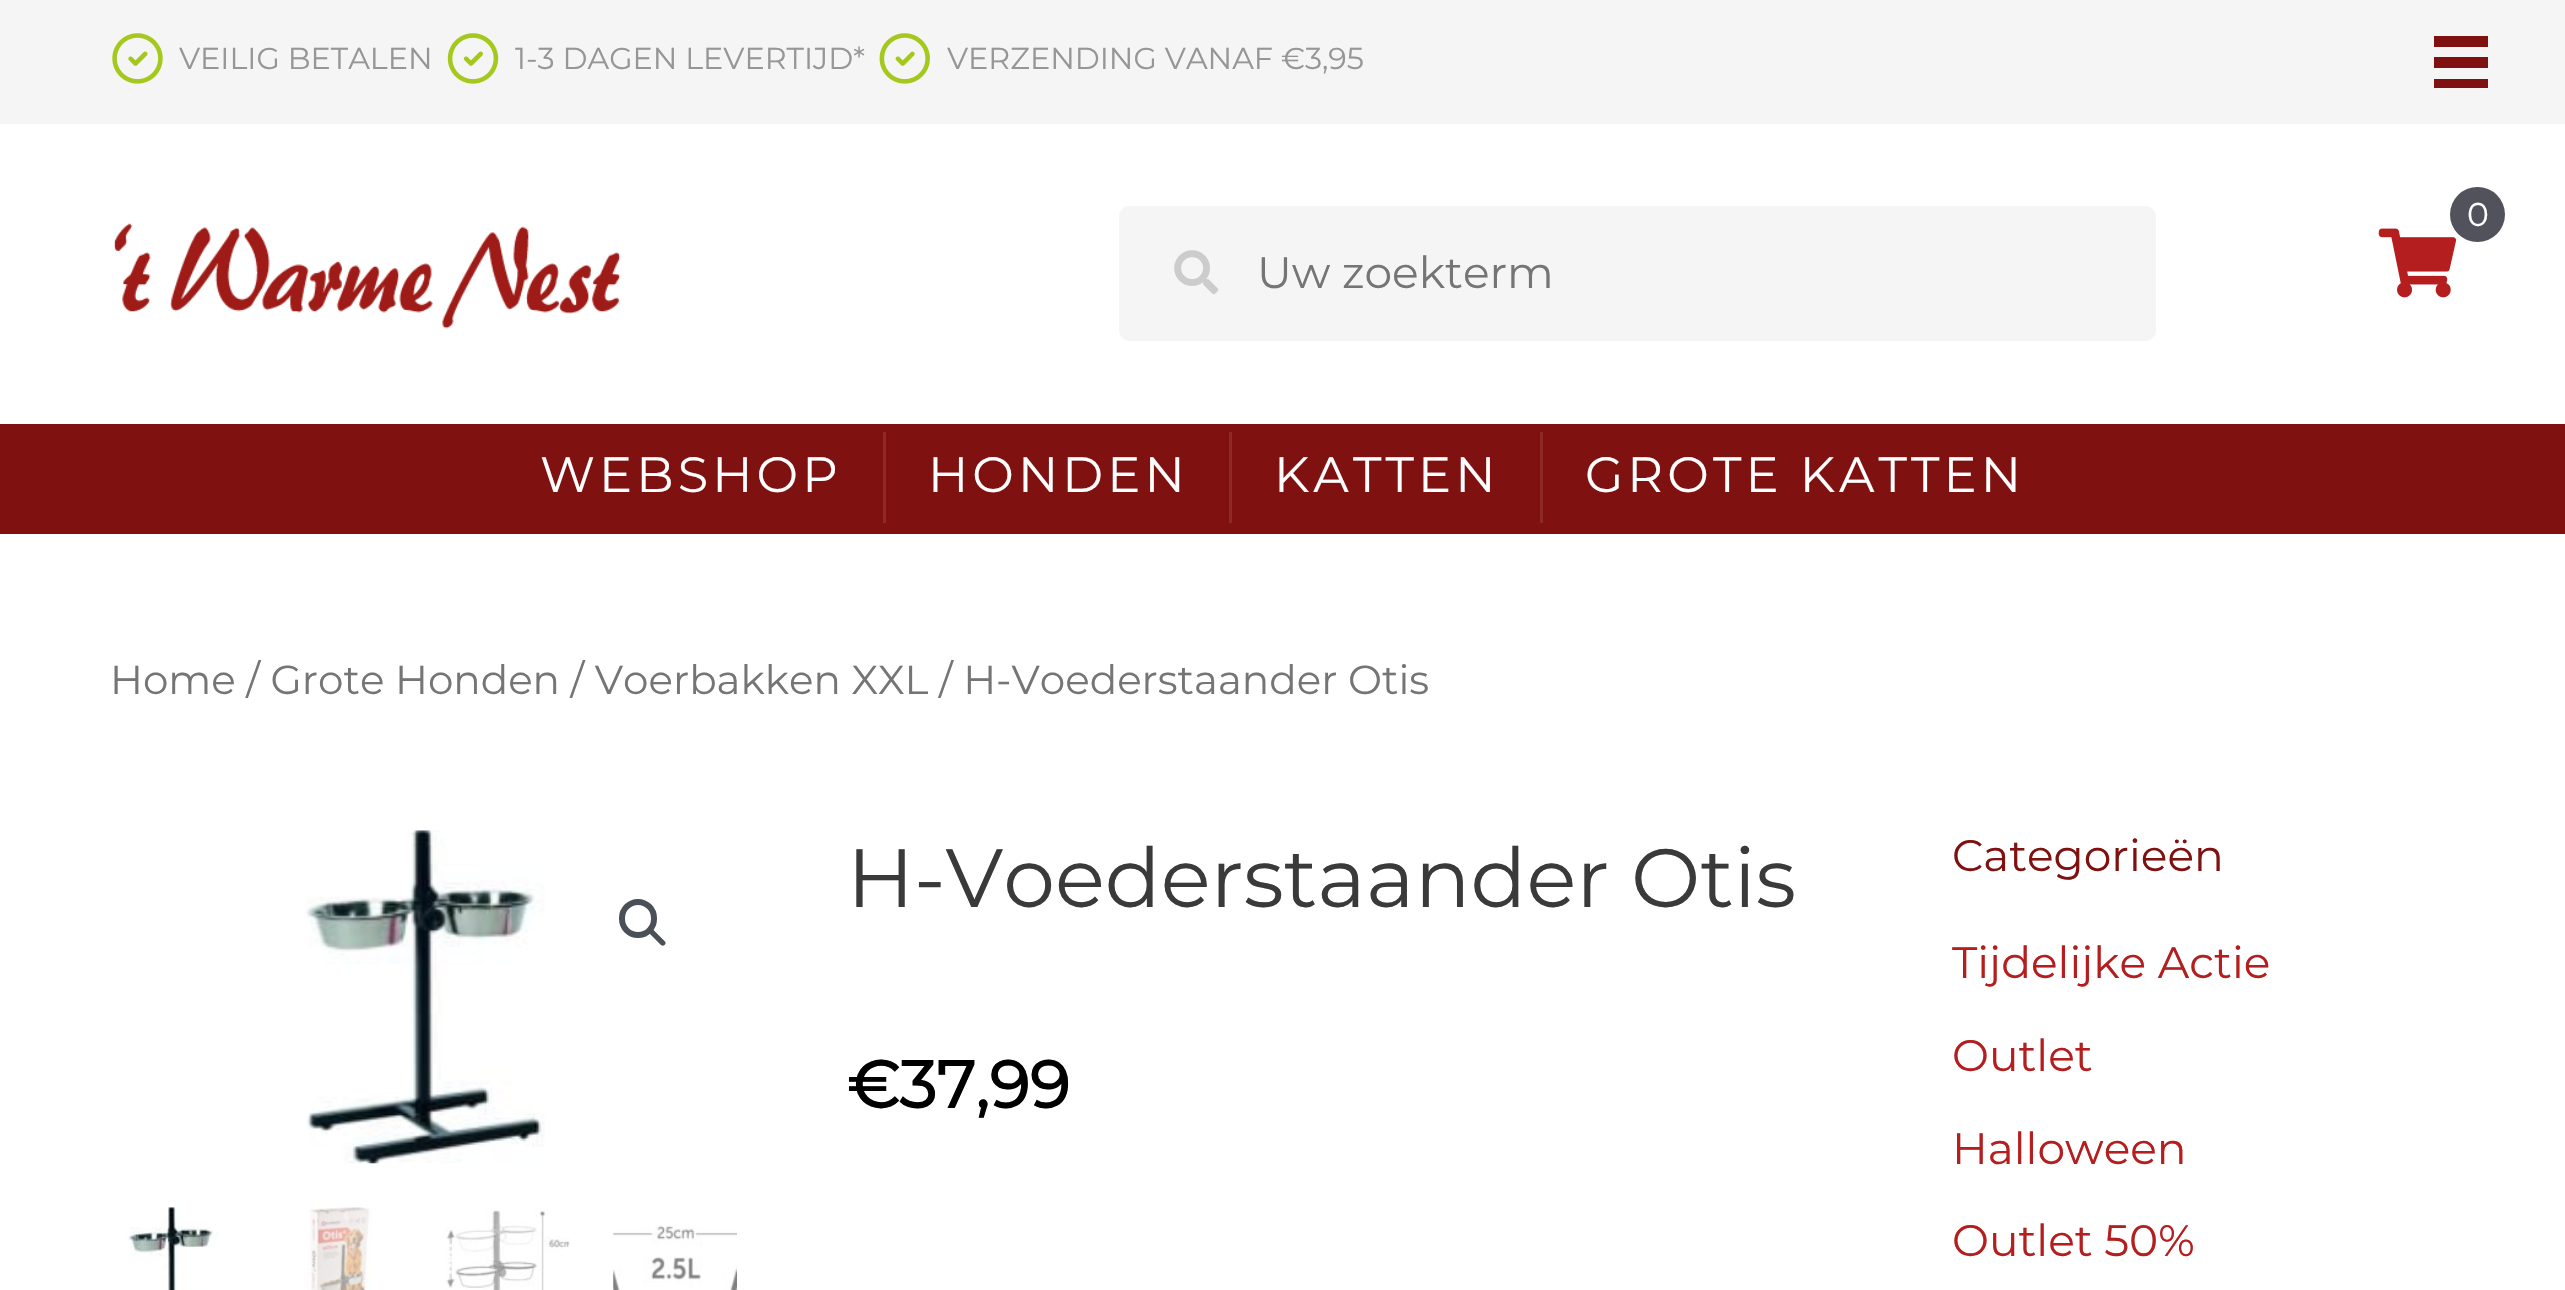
static SkFont makeFont(const char* family, int weight, float size, bool italic = false) {
  SkFontStyle style(weight, SkFontStyle::kNormal_Width,
    italic ? SkFontStyle::kItalic_Slant : SkFontStyle::kUpright_Slant);
  SkFont result(fontMgr->matchFamilyStyle(family, style), size);
  result.setSubpixel(true);
  return result;
}

static void text(SkCanvas* c, const char* s, float x, float y, const SkFont& font, SkColor color) {
  SkPaint ink(SkColor4f::FromColor(color));
  ink.setAntiAlias(true);
  c->drawString(s, x, y, font, ink);
}

static void spacedText(SkCanvas* c, const char* s, float x, float y, const SkFont& font, const SkPaint& ink, float letter, float word) {
  std::vector<SkGlyphID> glyphs(font.countText(s, strlen(s), SkTextEncoding::kUTF8));
  std::vector<float> xs(glyphs.size());
  font.textToGlyphs(s, strlen(s), SkTextEncoding::kUTF8, glyphs);
  font.getXPos(glyphs, xs, x);
  float extra = 0;
  for (size_t i = 0; i < glyphs.size(); i++) {
    xs[i] += extra;
    extra += letter + word * (glyphs[i] == font.unicharToGlyph(' '));
  }
  c->drawTextBlob(SkTextBlob::MakeFromPosHGlyphs(glyphs, xs, y, font), 0, 0, ink);
}

static void box(SkCanvas* c, float l, float t, float r, float b, SkColor color) {
  SkPaint ink(SkColor4f::FromColor(color));
  ink.setAntiAlias(true);
  c->drawRect(SkRect::MakeLTRB(l, t, r, b), ink);
}

static void roundBox(SkCanvas* c, float l, float t, float r, float b, float radius, SkColor color) {
  SkPaint ink(SkColor4f::FromColor(color));
  ink.setAntiAlias(true);
  c->drawRoundRect(SkRect::MakeLTRB(l, t, r, b), radius, radius, ink);
}

static void picture(SkCanvas* c, const char* path, float l, float t, float r, float b) {
  auto image = SkImages::DeferredFromEncodedData(SkData::MakeFromFileName(path));
  c->drawImageRect(image, SkRect::MakeLTRB(l, t, r, b), SkSamplingOptions());
}

void draw(SkCanvas* c) {
  SkPaint paint;
  paint.setAntiAlias(true);
  c->clear(0xffffffff);
  box(c, 0, 0, 2565, 124, 0xfff5f5f5);
  picture(c, "img_01.png", 112, 33, 163, 84);
  SkFont face1 = makeFont("Montserrat", 100, 30.25f);
  text(c, "VEILIG BETALEN", 179, 69, face1, 0xff969696);
  picture(c, "img_02.png", 447, 33, 499, 84);
  text(c, "1-3 DAGEN LEVERTIJD*", 515, 69, face1, 0xff969696);
  picture(c, "img_03.png", 879, 33, 930, 84);
  text(c, "VERZENDING VANAF €3,95", 947, 69, face1, 0xff969696);
  box(c, 2434, 36, 2488, 47, 0xff801111);
  box(c, 2434, 57, 2488, 68, 0xff801111);
  box(c, 2434, 79, 2488, 88, 0xff801111);
  picture(c, "img_04.png", 2378, 228, 2457, 298);
  paint.setColor(0xff52525d);
  c->drawCircle(2477.5f, 214.5f, 27.5f, paint);
  SkFont face2 = makeFont("Montserrat", 100, 33);
  text(c, "0", 2467, 226, face2, 0xffffffff);
  picture(c, "img_05.png", 114, 223, 621, 329);
  roundBox(c, 1119, 206, 2156, 341, 11, 0xfff5f5f5);
  picture(c, "img_06.png", 1174, 250, 1219, 295);
  SkFont face3 = makeFont("Montserrat", 100, 44);
  text(c, "Uw zoekterm", 1257, 288, face3, 0xff757575);
  box(c, 0, 424, 2565, 534, 0xff801111);
  SkFont face4 = makeFont("Montserrat", 100, 49.5f);
  paint.setColor(0xffffffff);
  spacedText(c, "WEBSHOP", 540, 492, face4, paint, 4.1f, 0);
  box(c, 883, 432, 886, 523, 0xff8d2929);
  spacedText(c, "HONDEN", 928, 492, face4, paint, 4.1f, 0);
  box(c, 1229, 432, 1232, 523, 0xff8d2929);
  spacedText(c, "KATTEN", 1274, 492, face4, paint, 4.1f, 0);
  box(c, 1540, 432, 1543, 523, 0xff8d2929);
  spacedText(c, "GROTE KATTEN", 1585, 492, face4, paint, 4.1f, 0);
  SkFont face5 = makeFont("Montserrat", 100, 40.5f);
  text(c, "Home / Grote Honden / Voerbakken XXL / H-Voederstaander Otis", 110, 694, face5, 0xff757575);
  picture(c, "img_07.png", 306, 830, 545, 1164);
  paint.setStyle(SkPaint::kStroke_Style);
  paint.setStrokeWidth(6);
  paint.setColor(0xff4b4f58);
  c->drawRoundRect(SkRect::MakeLTRB(622, 902, 654, 935), 16, 16, paint);
  paint.setStyle(SkPaint::kFill_Style);
  c->drawPath(SkPathBuilder().moveTo(649, 929.5f).cubicTo(650, 928, 652, 928, 653, 929.5f).lineTo(664.5f, 941).cubicTo(666, 942, 666, 944, 664.5f, 945).cubicTo(663.5f, 946, 662, 946, 661, 945).lineTo(649, 933).cubicTo(648, 932, 648, 930.5f, 649, 929.5f).close().detach(), paint);
  picture(c, "img_08.png", 127, 1207, 219, 1290);
  picture(c, "img_09.png", 307, 1207, 373, 1290);
  picture(c, "img_10.png", 445, 1208, 570, 1290);
  picture(c, "img_11.png", 613, 1225, 737, 1290);
  SkFont face6 = makeFont("Montserrat", 100, 82.5f);
  text(c, "H-Voederstaander Otis", 847, 907, face6, 0xff3a3a3a);
  SkFont face7 = makeFont("Montserrat", 700, 66);
  text(c, "€37,99", 847, 1108, face7, 0xff000000);
  text(c, "Categorieën", 1952, 871, face3, 0xff801111);
  text(c, "Tijdelijke Actie", 1952, 978, face3, 0xffb41e1e);
  text(c, "Outlet", 1952, 1071, face3, 0xffb41e1e);
  text(c, "Halloween", 1952, 1164, face3, 0xffb41e1e);
  text(c, "Outlet 50%", 1952, 1256, face3, 0xffb41e1e);
}
